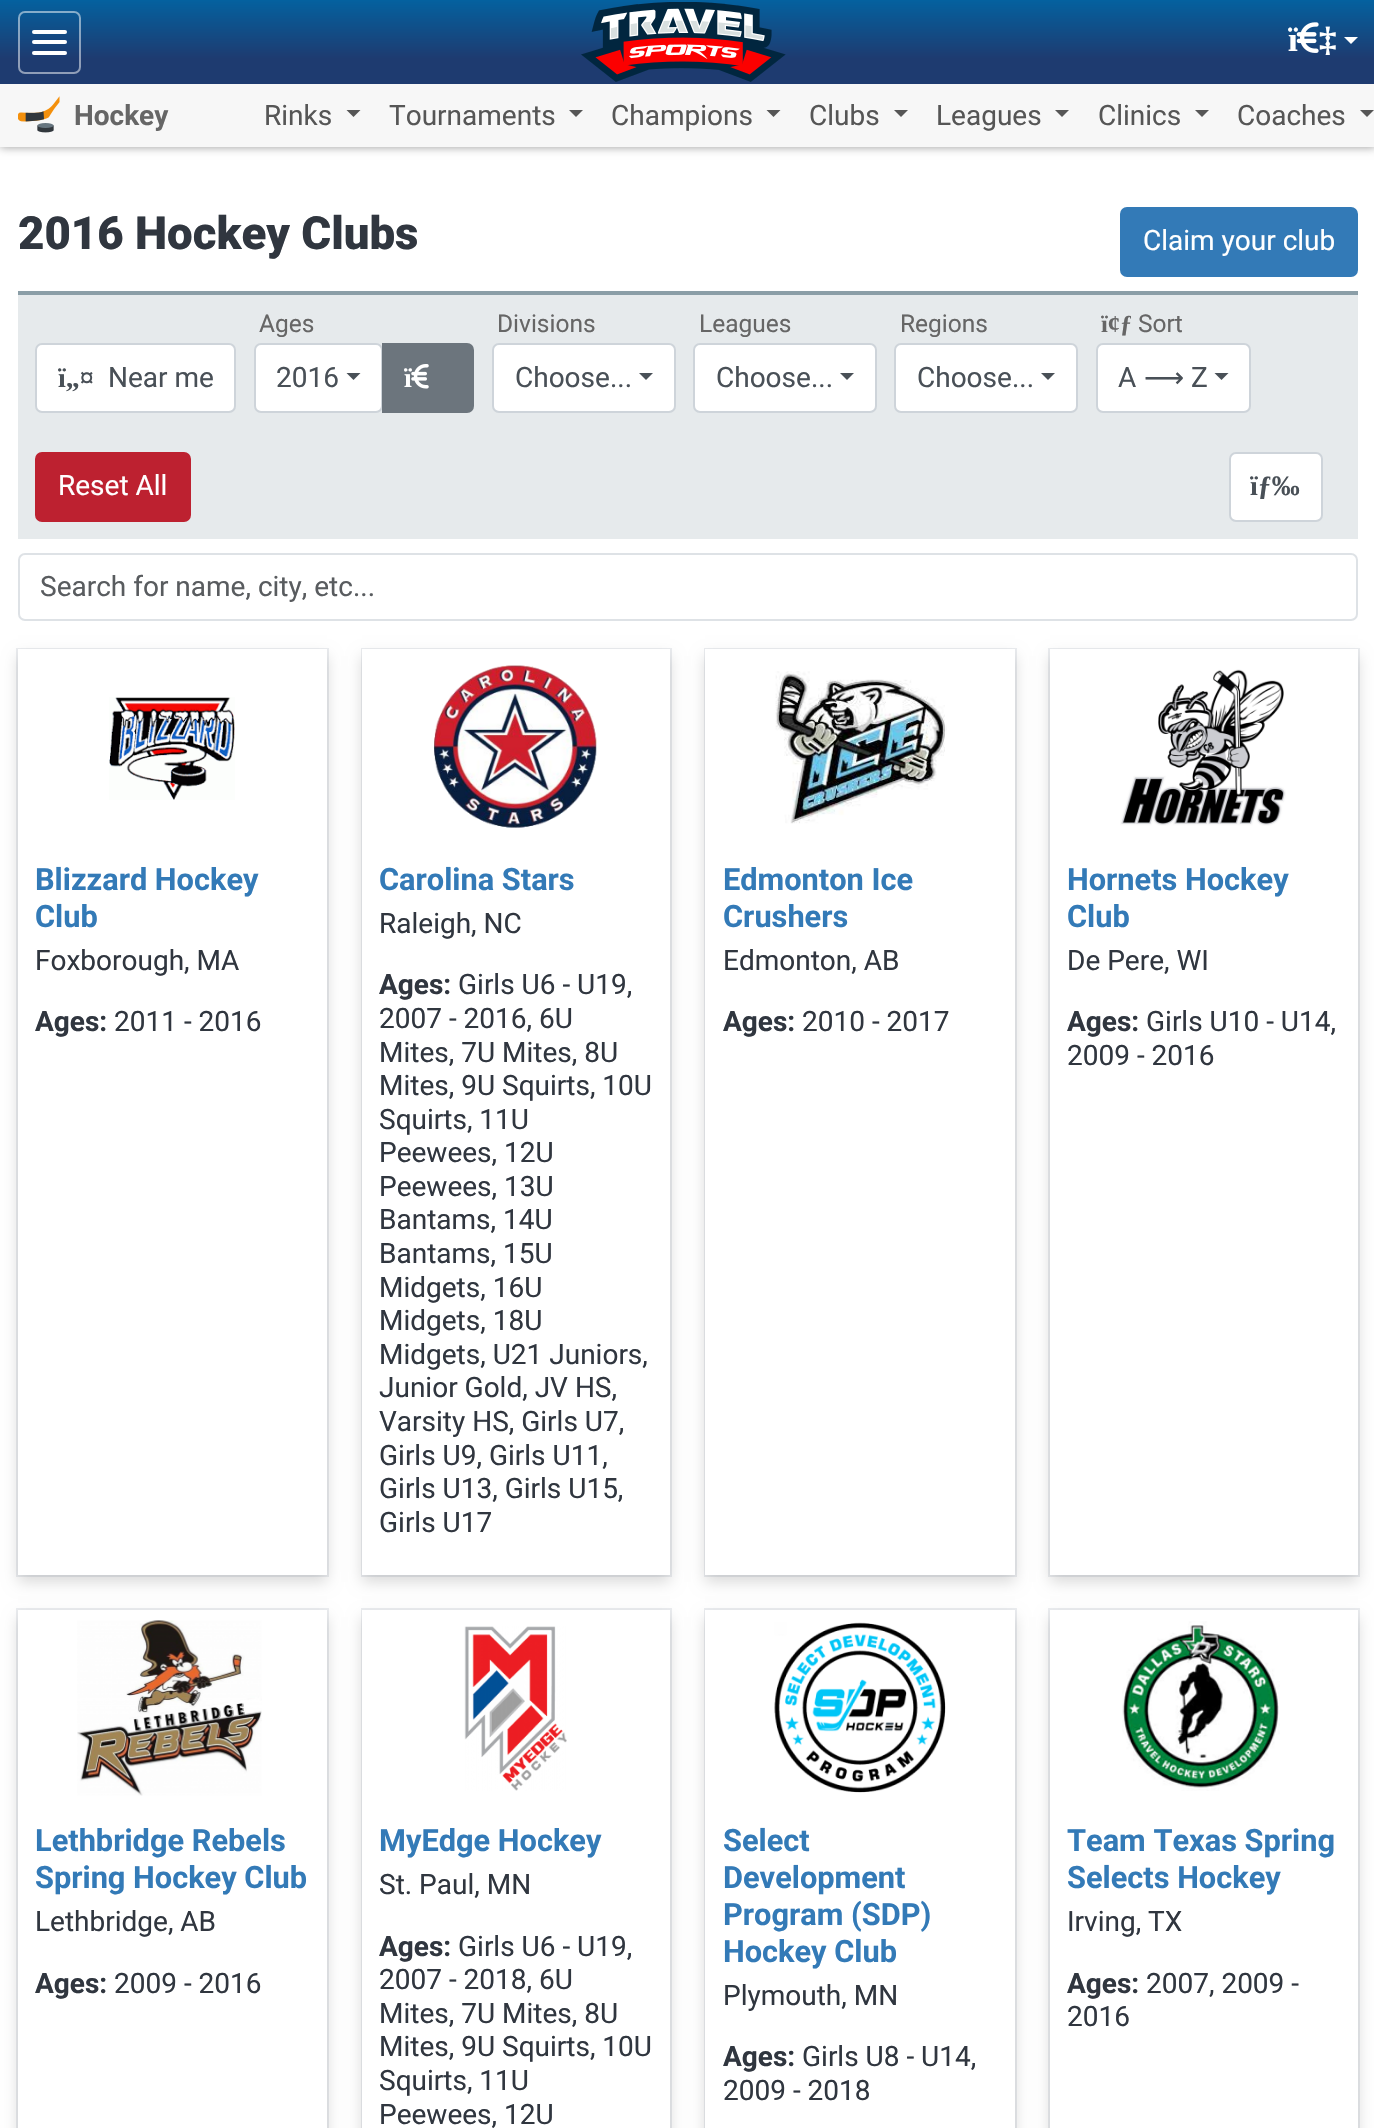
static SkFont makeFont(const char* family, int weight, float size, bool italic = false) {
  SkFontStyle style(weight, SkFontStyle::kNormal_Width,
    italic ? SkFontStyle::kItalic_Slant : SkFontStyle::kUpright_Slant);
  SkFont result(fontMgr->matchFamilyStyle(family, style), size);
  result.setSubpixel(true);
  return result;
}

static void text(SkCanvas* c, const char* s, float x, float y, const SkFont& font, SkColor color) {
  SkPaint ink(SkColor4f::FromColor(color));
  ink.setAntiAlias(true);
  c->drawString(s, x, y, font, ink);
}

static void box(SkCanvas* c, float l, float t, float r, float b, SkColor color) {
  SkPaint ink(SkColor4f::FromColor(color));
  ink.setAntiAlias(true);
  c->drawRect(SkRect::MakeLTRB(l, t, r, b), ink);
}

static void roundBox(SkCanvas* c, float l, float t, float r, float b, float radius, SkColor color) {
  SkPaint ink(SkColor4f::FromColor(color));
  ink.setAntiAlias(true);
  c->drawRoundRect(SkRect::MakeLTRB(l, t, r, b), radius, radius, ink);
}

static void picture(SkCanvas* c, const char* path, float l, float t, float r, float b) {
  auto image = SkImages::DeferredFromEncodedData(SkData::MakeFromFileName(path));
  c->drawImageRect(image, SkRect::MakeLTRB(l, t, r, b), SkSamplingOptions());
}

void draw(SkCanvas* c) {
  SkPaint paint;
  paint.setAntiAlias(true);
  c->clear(0xffffffff);
  paint.setColor(0x66000000);
  paint.setMaskFilter(SkMaskFilter::MakeBlur(kNormal_SkBlurStyle, 4.5f));
  c->drawRect(SkRect::MakeLTRB(0, 0, 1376, 147), paint);
  paint.setMaskFilter(nullptr);
  {
    const SkColor colors[] = {0xff1e3b70, 0xff1e3b70, 0xff04619f};
    const float stops[] = {0, 0.3f, 1};
    const SkPoint ends[] = {{688, 84}, {688, 0}};
    paint.setShader(SkGradientShader::MakeLinear(ends, colors, stops, 3, SkTileMode::kClamp));
    paint.setAlpha(255);
  }
  c->drawRect(SkRect::MakeLTRB(0, 0, 1374, 84), paint);
  paint.setStyle(SkPaint::kStroke_Style);
  paint.setStrokeWidth(2);
  paint.setShader(nullptr);
  paint.setColor(0x80ffffff);
  c->drawRoundRect(SkRect::MakeLTRB(19, 12, 80, 73), 6, 6, paint);
  roundBox(c, 32, 30, 67, 34, 2, 0xffffffff);
  roundBox(c, 32, 40, 67, 44, 2, 0xffffffff);
  roundBox(c, 32, 51, 67, 55, 2, 0xffffffff);
  picture(c, "img_01.png", 581, 2, 786, 82);
  picture(c, "img_02.png", 1296, 22, 1319, 53);
  SkFont face1 = makeFont("Liberation Serif", 700, 35);
  text(c, "ï", 1288, 51, face1, 0xffffffff);
  text(c, "‡", 1319, 51, face1, 0xffffffff);
  paint.setStyle(SkPaint::kFill_Style);
  paint.setColor(0xffffffff);
  c->drawPath(SkPathBuilder().moveTo(1344, 37).lineTo(1358, 37).lineTo(1351, 44).close().detach(), paint);
  box(c, 0, 84, 1374, 147, 0xfff7f7f7);
  picture(c, "img_03.png", 18, 96, 60, 133);
  SkFont face2 = makeFont("Roboto", 700, 28);
  text(c, "Hockey", 74, 125, face2, 0xff666666);
  SkFont face3 = makeFont("Roboto", 400, 28);
  text(c, "Rinks", 264, 125, face3, 0xff565656);
  paint.setColor(0xff565656);
  c->drawPath(SkPathBuilder().moveTo(346.5f, 110).lineTo(360.5f, 110).lineTo(353.5f, 117).close().detach(), paint);
  text(c, "Tournaments", 389, 125, face3, 0xff565656);
  c->drawPath(SkPathBuilder().moveTo(569, 110).lineTo(583, 110).lineTo(576, 117).close().detach(), paint);
  text(c, "Champions", 611, 125, face3, 0xff565656);
  c->drawPath(SkPathBuilder().moveTo(766.5f, 110).lineTo(780.5f, 110).lineTo(773.5f, 117).close().detach(), paint);
  text(c, "Clubs", 809, 125, face3, 0xff565656);
  c->drawPath(SkPathBuilder().moveTo(894, 110).lineTo(908, 110).lineTo(901, 117).close().detach(), paint);
  text(c, "Leagues", 936, 125, face3, 0xff565656);
  c->drawPath(SkPathBuilder().moveTo(1055, 110).lineTo(1069, 110).lineTo(1062, 117).close().detach(), paint);
  text(c, "Clinics", 1098, 125, face3, 0xff565656);
  c->drawPath(SkPathBuilder().moveTo(1195, 110).lineTo(1209, 110).lineTo(1202, 117).close().detach(), paint);
  text(c, "Coaches", 1237, 125, face3, 0xff565656);
  c->drawPath(SkPathBuilder().moveTo(1360, 110).lineTo(1374, 110).lineTo(1367, 117).close().detach(), paint);
  SkFont face4 = makeFont("Roboto", 900, 45.6f);
  text(c, "2016 Hockey Clubs", 18, 249, face4, 0xff30363f);
  paint.setColor(0xff337ab7);
  c->drawRoundRect(SkRect::MakeLTRB(1121, 208, 1357, 276), 6, 6, paint);
  paint.setStyle(SkPaint::kStroke_Style);
  c->drawRoundRect(SkRect::MakeLTRB(1121, 208, 1357, 276), 6, 6, paint);
  text(c, "Claim your club", 1143, 250, face3, 0xffffffff);
  box(c, 18, 295, 1358, 539, 0xffe6eaec);
  box(c, 18, 291, 1358, 295, 0xff8b9ea7);
  paint.setStyle(SkPaint::kFill_Style);
  paint.setColor(0xffffffff);
  c->drawRoundRect(SkRect::MakeLTRB(36, 344, 235, 412), 6, 6, paint);
  paint.setStyle(SkPaint::kStroke_Style);
  paint.setColor(0xffced4da);
  c->drawRoundRect(SkRect::MakeLTRB(36, 344, 235, 412), 6, 6, paint);
  SkFont face5 = makeFont("Liberation Serif", 700, 28);
  text(c, "ï„¤", 58, 387, face5, 0xff495057);
  text(c, "Near me", 108, 387, face3, 0xff495057);
  SkFont face6 = makeFont("Roboto", 400, 24.5f);
  text(c, "Ages", 259, 332, face6, 0xff666666);
  paint.setStyle(SkPaint::kFill_Style);
  paint.setColor(0xffffffff);
  c->drawRoundRect(SkRect::MakeLTRB(255, 344, 382, 412), 6, 6, paint);
  paint.setStyle(SkPaint::kStroke_Style);
  paint.setColor(0xffced4da);
  c->drawRoundRect(SkRect::MakeLTRB(255, 344, 382, 412), 6, 6, paint);
  text(c, "2016", 276, 387, face3, 0xff495057);
  paint.setStyle(SkPaint::kFill_Style);
  paint.setColor(0xff495057);
  c->drawPath(SkPathBuilder().moveTo(346.5f, 373).lineTo(360.5f, 373).lineTo(353.5f, 380).close().detach(), paint);
  paint.setColor(0xff6c757d);
  c->drawPath(SkPathBuilder().moveTo(383, 344).lineTo(467, 344).cubicTo(470.5f, 344, 473, 346.5f, 473, 350).lineTo(473, 406).cubicTo(473, 409.5f, 470.5f, 412, 467, 412).lineTo(383, 412).close().detach(), paint);
  paint.setStyle(SkPaint::kStroke_Style);
  c->drawPath(SkPathBuilder().moveTo(383, 344).lineTo(467, 344).cubicTo(470.5f, 344, 473, 346.5f, 473, 350).lineTo(473, 406).cubicTo(473, 409.5f, 470.5f, 412, 467, 412).lineTo(383, 412).close().detach(), paint);
  picture(c, "img_04.png", 411, 364, 429, 389);
  text(c, "ï", 404, 387, face5, 0xffffffff);
  text(c, "Divisions", 497, 332, face6, 0xff666666);
  paint.setStyle(SkPaint::kFill_Style);
  paint.setColor(0xffffffff);
  c->drawRoundRect(SkRect::MakeLTRB(493, 344, 675, 412), 6, 6, paint);
  paint.setStyle(SkPaint::kStroke_Style);
  paint.setColor(0xffced4da);
  c->drawRoundRect(SkRect::MakeLTRB(493, 344, 675, 412), 6, 6, paint);
  text(c, "Choose...", 515, 387, face3, 0xff495057);
  paint.setStyle(SkPaint::kFill_Style);
  paint.setColor(0xff495057);
  c->drawPath(SkPathBuilder().moveTo(639, 373).lineTo(653, 373).lineTo(646, 380).close().detach(), paint);
  text(c, "Leagues", 699, 332, face6, 0xff666666);
  paint.setColor(0xffffffff);
  c->drawRoundRect(SkRect::MakeLTRB(694, 344, 876, 412), 6, 6, paint);
  paint.setStyle(SkPaint::kStroke_Style);
  paint.setColor(0xffced4da);
  c->drawRoundRect(SkRect::MakeLTRB(694, 344, 876, 412), 6, 6, paint);
  text(c, "Choose...", 716, 387, face3, 0xff495057);
  paint.setStyle(SkPaint::kFill_Style);
  paint.setColor(0xff495057);
  c->drawPath(SkPathBuilder().moveTo(840, 373).lineTo(854, 373).lineTo(847, 380).close().detach(), paint);
  text(c, "Regions", 900, 332, face6, 0xff666666);
  paint.setColor(0xffffffff);
  c->drawRoundRect(SkRect::MakeLTRB(895, 344, 1077, 412), 6, 6, paint);
  paint.setStyle(SkPaint::kStroke_Style);
  paint.setColor(0xffced4da);
  c->drawRoundRect(SkRect::MakeLTRB(895, 344, 1077, 412), 6, 6, paint);
  text(c, "Choose...", 917, 387, face3, 0xff495057);
  paint.setStyle(SkPaint::kFill_Style);
  paint.setColor(0xff495057);
  c->drawPath(SkPathBuilder().moveTo(1041, 373).lineTo(1055, 373).lineTo(1048, 380).close().detach(), paint);
  SkFont face7 = makeFont("Liberation Serif", 700, 24.5f);
  text(c, "ï¢ƒ", 1101, 332, face7, 0xff666666);
  text(c, "Sort", 1138, 332, face6, 0xff666666);
  paint.setColor(0xffffffff);
  c->drawRoundRect(SkRect::MakeLTRB(1097, 344, 1250, 412), 6, 6, paint);
  paint.setStyle(SkPaint::kStroke_Style);
  paint.setColor(0xffced4da);
  c->drawRoundRect(SkRect::MakeLTRB(1097, 344, 1250, 412), 6, 6, paint);
  text(c, "A", 1118, 387, face3, 0xff495057);
  SkFont face8 = makeFont("DejaVu Sans", 400, 28);
  text(c, "⟶", 1144, 387, face8, 0xff495057);
  text(c, "Z", 1191, 387, face3, 0xff495057);
  paint.setStyle(SkPaint::kFill_Style);
  paint.setColor(0xff495057);
  c->drawPath(SkPathBuilder().moveTo(1214.5f, 373).lineTo(1228.5f, 373).lineTo(1221.5f, 380).close().detach(), paint);
  paint.setColor(0xffbd2130);
  c->drawRoundRect(SkRect::MakeLTRB(36, 453, 190, 521), 6, 6, paint);
  paint.setStyle(SkPaint::kStroke_Style);
  c->drawRoundRect(SkRect::MakeLTRB(36, 453, 190, 521), 6, 6, paint);
  text(c, "Reset All", 58, 495, face3, 0xffffffff);
  paint.setStyle(SkPaint::kFill_Style);
  paint.setColor(0xffffffff);
  c->drawRoundRect(SkRect::MakeLTRB(1230, 453, 1322, 521), 6, 6, paint);
  paint.setStyle(SkPaint::kStroke_Style);
  paint.setColor(0xffced4da);
  c->drawRoundRect(SkRect::MakeLTRB(1230, 453, 1322, 521), 6, 6, paint);
  text(c, "ïƒ‰", 1250, 495, face5, 0xff495057);
  paint.setColor(0xffdee2e6);
  c->drawRoundRect(SkRect::MakeLTRB(19, 554, 1357, 620), 6, 6, paint);
  text(c, "Search for name, city, etc...", 40, 596, face3, 0xff595c5f);
  paint.setColor(0xffebedf0);
  c->drawRect(SkRect::MakeLTRB(17, 649, 328, 1576), paint);
  paint.setStyle(SkPaint::kFill_Style);
  paint.setColor(0x26000000);
  paint.setMaskFilter(SkMaskFilter::MakeBlur(kNormal_SkBlurStyle, 7));
  c->drawRect(SkRect::MakeLTRB(18, 656, 327, 1582), paint);
  paint.setMaskFilter(nullptr);
  box(c, 18, 649, 327, 1575, 0xffffffff);
  picture(c, "img_05.png", 109, 697, 235, 800);
  SkFont face9 = makeFont("Roboto", 700, 30.75f);
  text(c, "Blizzard Hockey", 35, 890, face9, 0xff337ab7);
  text(c, "Club", 35, 927, face9, 0xff337ab7);
  text(c, "Foxborough, MA", 35, 970, face3, 0xff30363f);
  text(c, "Ages:", 35, 1031, face2, 0xff30363f);
  text(c, "2011 - 2016", 114, 1031, face3, 0xff30363f);
  paint.setStyle(SkPaint::kStroke_Style);
  paint.setColor(0xffebedf0);
  c->drawRect(SkRect::MakeLTRB(362, 649, 671, 1576), paint);
  paint.setStyle(SkPaint::kFill_Style);
  paint.setColor(0x26000000);
  paint.setMaskFilter(SkMaskFilter::MakeBlur(kNormal_SkBlurStyle, 7));
  c->drawRect(SkRect::MakeLTRB(362, 656, 670, 1582), paint);
  paint.setMaskFilter(nullptr);
  box(c, 362, 649, 670, 1575, 0xffffffff);
  picture(c, "img_06.png", 433, 665, 597, 828);
  text(c, "Carolina Stars", 379, 890, face9, 0xff337ab7);
  text(c, "Raleigh, NC", 379, 933, face3, 0xff30363f);
  text(c, "Ages:", 379, 994, face2, 0xff30363f);
  text(c, "Girls U6 - U19,", 458, 994, face3, 0xff30363f);
  text(c, "2007 - 2016, 6U", 379, 1028, face3, 0xff30363f);
  text(c, "Mites, 7U Mites, 8U", 379, 1062, face3, 0xff30363f);
  text(c, "Mites, 9U Squirts, 10U", 379, 1095, face3, 0xff30363f);
  text(c, "Squirts, 11U", 379, 1129, face3, 0xff30363f);
  text(c, "Peewees, 12U", 379, 1162, face3, 0xff30363f);
  text(c, "Peewees, 13U", 379, 1196, face3, 0xff30363f);
  text(c, "Bantams, 14U", 379, 1229, face3, 0xff30363f);
  text(c, "Bantams, 15U", 379, 1263, face3, 0xff30363f);
  text(c, "Midgets, 16U", 379, 1297, face3, 0xff30363f);
  text(c, "Midgets, 18U", 379, 1330, face3, 0xff30363f);
  text(c, "Midgets, U21 Juniors,", 379, 1364, face3, 0xff30363f);
  text(c, "Junior Gold, JV HS,", 379, 1397, face3, 0xff30363f);
  text(c, "Varsity HS, Girls U7,", 379, 1431, face3, 0xff30363f);
  text(c, "Girls U9, Girls U11,", 379, 1465, face3, 0xff30363f);
  text(c, "Girls U13, Girls U15,", 379, 1498, face3, 0xff30363f);
  text(c, "Girls U17", 379, 1532, face3, 0xff30363f);
  paint.setStyle(SkPaint::kStroke_Style);
  paint.setColor(0xffebedf0);
  c->drawRect(SkRect::MakeLTRB(705, 649, 1016, 1576), paint);
  paint.setStyle(SkPaint::kFill_Style);
  paint.setColor(0x26000000);
  paint.setMaskFilter(SkMaskFilter::MakeBlur(kNormal_SkBlurStyle, 7));
  c->drawRect(SkRect::MakeLTRB(705, 656, 1015, 1582), paint);
  paint.setMaskFilter(nullptr);
  box(c, 705, 649, 1015, 1575, 0xffffffff);
  picture(c, "img_07.png", 775, 671, 947, 824);
  text(c, "Edmonton Ice", 723, 890, face9, 0xff337ab7);
  text(c, "Crushers", 723, 927, face9, 0xff337ab7);
  text(c, "Edmonton, AB", 723, 970, face3, 0xff30363f);
  text(c, "Ages:", 723, 1031, face2, 0xff30363f);
  text(c, "2010 - 2017", 802, 1031, face3, 0xff30363f);
  paint.setStyle(SkPaint::kStroke_Style);
  paint.setColor(0xffebedf0);
  c->drawRect(SkRect::MakeLTRB(1049, 649, 1359, 1576), paint);
  paint.setStyle(SkPaint::kFill_Style);
  paint.setColor(0x26000000);
  paint.setMaskFilter(SkMaskFilter::MakeBlur(kNormal_SkBlurStyle, 7));
  c->drawRect(SkRect::MakeLTRB(1050, 656, 1358, 1582), paint);
  paint.setMaskFilter(nullptr);
  box(c, 1050, 649, 1358, 1575, 0xffffffff);
  picture(c, "img_08.png", 1120, 669, 1286, 826);
  text(c, "Hornets Hockey", 1067, 890, face9, 0xff337ab7);
  text(c, "Club", 1067, 927, face9, 0xff337ab7);
  text(c, "De Pere, WI", 1067, 970, face3, 0xff30363f);
  text(c, "Ages:", 1067, 1031, face2, 0xff30363f);
  text(c, "Girls U10 - U14,", 1146, 1031, face3, 0xff30363f);
  text(c, "2009 - 2016", 1067, 1065, face3, 0xff30363f);
  paint.setStyle(SkPaint::kStroke_Style);
  paint.setColor(0xffebedf0);
  c->drawRect(SkRect::MakeLTRB(17, 1609, 328, 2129), paint);
  c->save();
  c->clipPath(SkPathBuilder(SkPathFillType::kEvenOdd).moveTo(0, 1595).lineTo(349, 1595).lineTo(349, 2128).lineTo(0, 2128).close().moveTo(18, 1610).lineTo(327, 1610).lineTo(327, 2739).lineTo(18, 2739).close().detach(), true);
  paint.setStyle(SkPaint::kFill_Style);
  paint.setColor(0x26000000);
  paint.setMaskFilter(SkMaskFilter::MakeBlur(kNormal_SkBlurStyle, 7));
  c->drawRect(SkRect::MakeLTRB(18, 1617, 327, 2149), paint);
  paint.setMaskFilter(nullptr);
  c->restore();
  picture(c, "img_09.png", 77, 1620, 262, 1796);
  text(c, "Lethbridge Rebels", 35, 1851, face9, 0xff337ab7);
  text(c, "Spring Hockey Club", 35, 1888, face9, 0xff337ab7);
  text(c, "Lethbridge, AB", 35, 1931, face3, 0xff30363f);
  text(c, "Ages:", 35, 1993, face2, 0xff30363f);
  text(c, "2009 - 2016", 114, 1993, face3, 0xff30363f);
  paint.setStyle(SkPaint::kStroke_Style);
  paint.setColor(0xffebedf0);
  c->drawRect(SkRect::MakeLTRB(362, 1609, 671, 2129), paint);
  paint.setStyle(SkPaint::kFill_Style);
  paint.setColor(0x26000000);
  paint.setMaskFilter(SkMaskFilter::MakeBlur(kNormal_SkBlurStyle, 7));
  c->drawRect(SkRect::MakeLTRB(362, 1617, 670, 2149), paint);
  paint.setMaskFilter(nullptr);
  box(c, 362, 1610, 670, 2128, 0xffffffff);
  picture(c, "img_10.png", 464, 1626, 567, 1791);
  text(c, "MyEdge Hockey", 379, 1851, face9, 0xff337ab7);
  text(c, "St. Paul, MN", 379, 1894, face3, 0xff30363f);
  text(c, "Ages:", 379, 1956, face2, 0xff30363f);
  text(c, "Girls U6 - U19,", 458, 1956, face3, 0xff30363f);
  text(c, "2007 - 2018, 6U", 379, 1989, face3, 0xff30363f);
  text(c, "Mites, 7U Mites, 8U", 379, 2023, face3, 0xff30363f);
  text(c, "Mites, 9U Squirts, 10U", 379, 2056, face3, 0xff30363f);
  text(c, "Squirts, 11U", 379, 2090, face3, 0xff30363f);
  text(c, "Peewees, 12U", 379, 2124, face3, 0xff30363f);
  paint.setStyle(SkPaint::kStroke_Style);
  paint.setColor(0xffebedf0);
  c->drawRect(SkRect::MakeLTRB(705, 1609, 1016, 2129), paint);
  paint.setStyle(SkPaint::kFill_Style);
  paint.setColor(0x26000000);
  paint.setMaskFilter(SkMaskFilter::MakeBlur(kNormal_SkBlurStyle, 7));
  c->drawRect(SkRect::MakeLTRB(705, 1617, 1015, 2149), paint);
  paint.setMaskFilter(nullptr);
  box(c, 705, 1610, 1015, 2128, 0xffffffff);
  picture(c, "img_11.png", 774, 1622, 946, 1793);
  text(c, "Select", 723, 1851, face9, 0xff337ab7);
  text(c, "Development", 723, 1888, face9, 0xff337ab7);
  text(c, "Program (SDP)", 723, 1925, face9, 0xff337ab7);
  text(c, "Hockey Club", 723, 1962, face9, 0xff337ab7);
  text(c, "Plymouth, MN", 723, 2005, face3, 0xff30363f);
  text(c, "Ages:", 723, 2066, face2, 0xff30363f);
  text(c, "Girls U8 - U14,", 802, 2066, face3, 0xff30363f);
  text(c, "2009 - 2018", 723, 2100, face3, 0xff30363f);
  paint.setStyle(SkPaint::kStroke_Style);
  paint.setColor(0xffebedf0);
  c->drawRect(SkRect::MakeLTRB(1049, 1609, 1359, 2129), paint);
  c->save();
  c->clipPath(SkPathBuilder(SkPathFillType::kEvenOdd).moveTo(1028, 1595).lineTo(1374, 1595).lineTo(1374, 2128).lineTo(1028, 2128).close().moveTo(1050, 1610).lineTo(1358, 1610).lineTo(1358, 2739).lineTo(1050, 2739).close().detach(), true);
  paint.setStyle(SkPaint::kFill_Style);
  paint.setColor(0x26000000);
  paint.setMaskFilter(SkMaskFilter::MakeBlur(kNormal_SkBlurStyle, 7));
  c->drawRect(SkRect::MakeLTRB(1050, 1617, 1358, 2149), paint);
  paint.setMaskFilter(nullptr);
  c->restore();
  picture(c, "img_12.png", 1122, 1621, 1280, 1791);
  text(c, "Team Texas Spring", 1067, 1851, face9, 0xff337ab7);
  text(c, "Selects Hockey", 1067, 1888, face9, 0xff337ab7);
  text(c, "Irving, TX", 1067, 1931, face3, 0xff30363f);
  text(c, "Ages:", 1067, 1993, face2, 0xff30363f);
  text(c, "2007, 2009 -", 1146, 1993, face3, 0xff30363f);
  text(c, "2016", 1067, 2026, face3, 0xff30363f);
}
